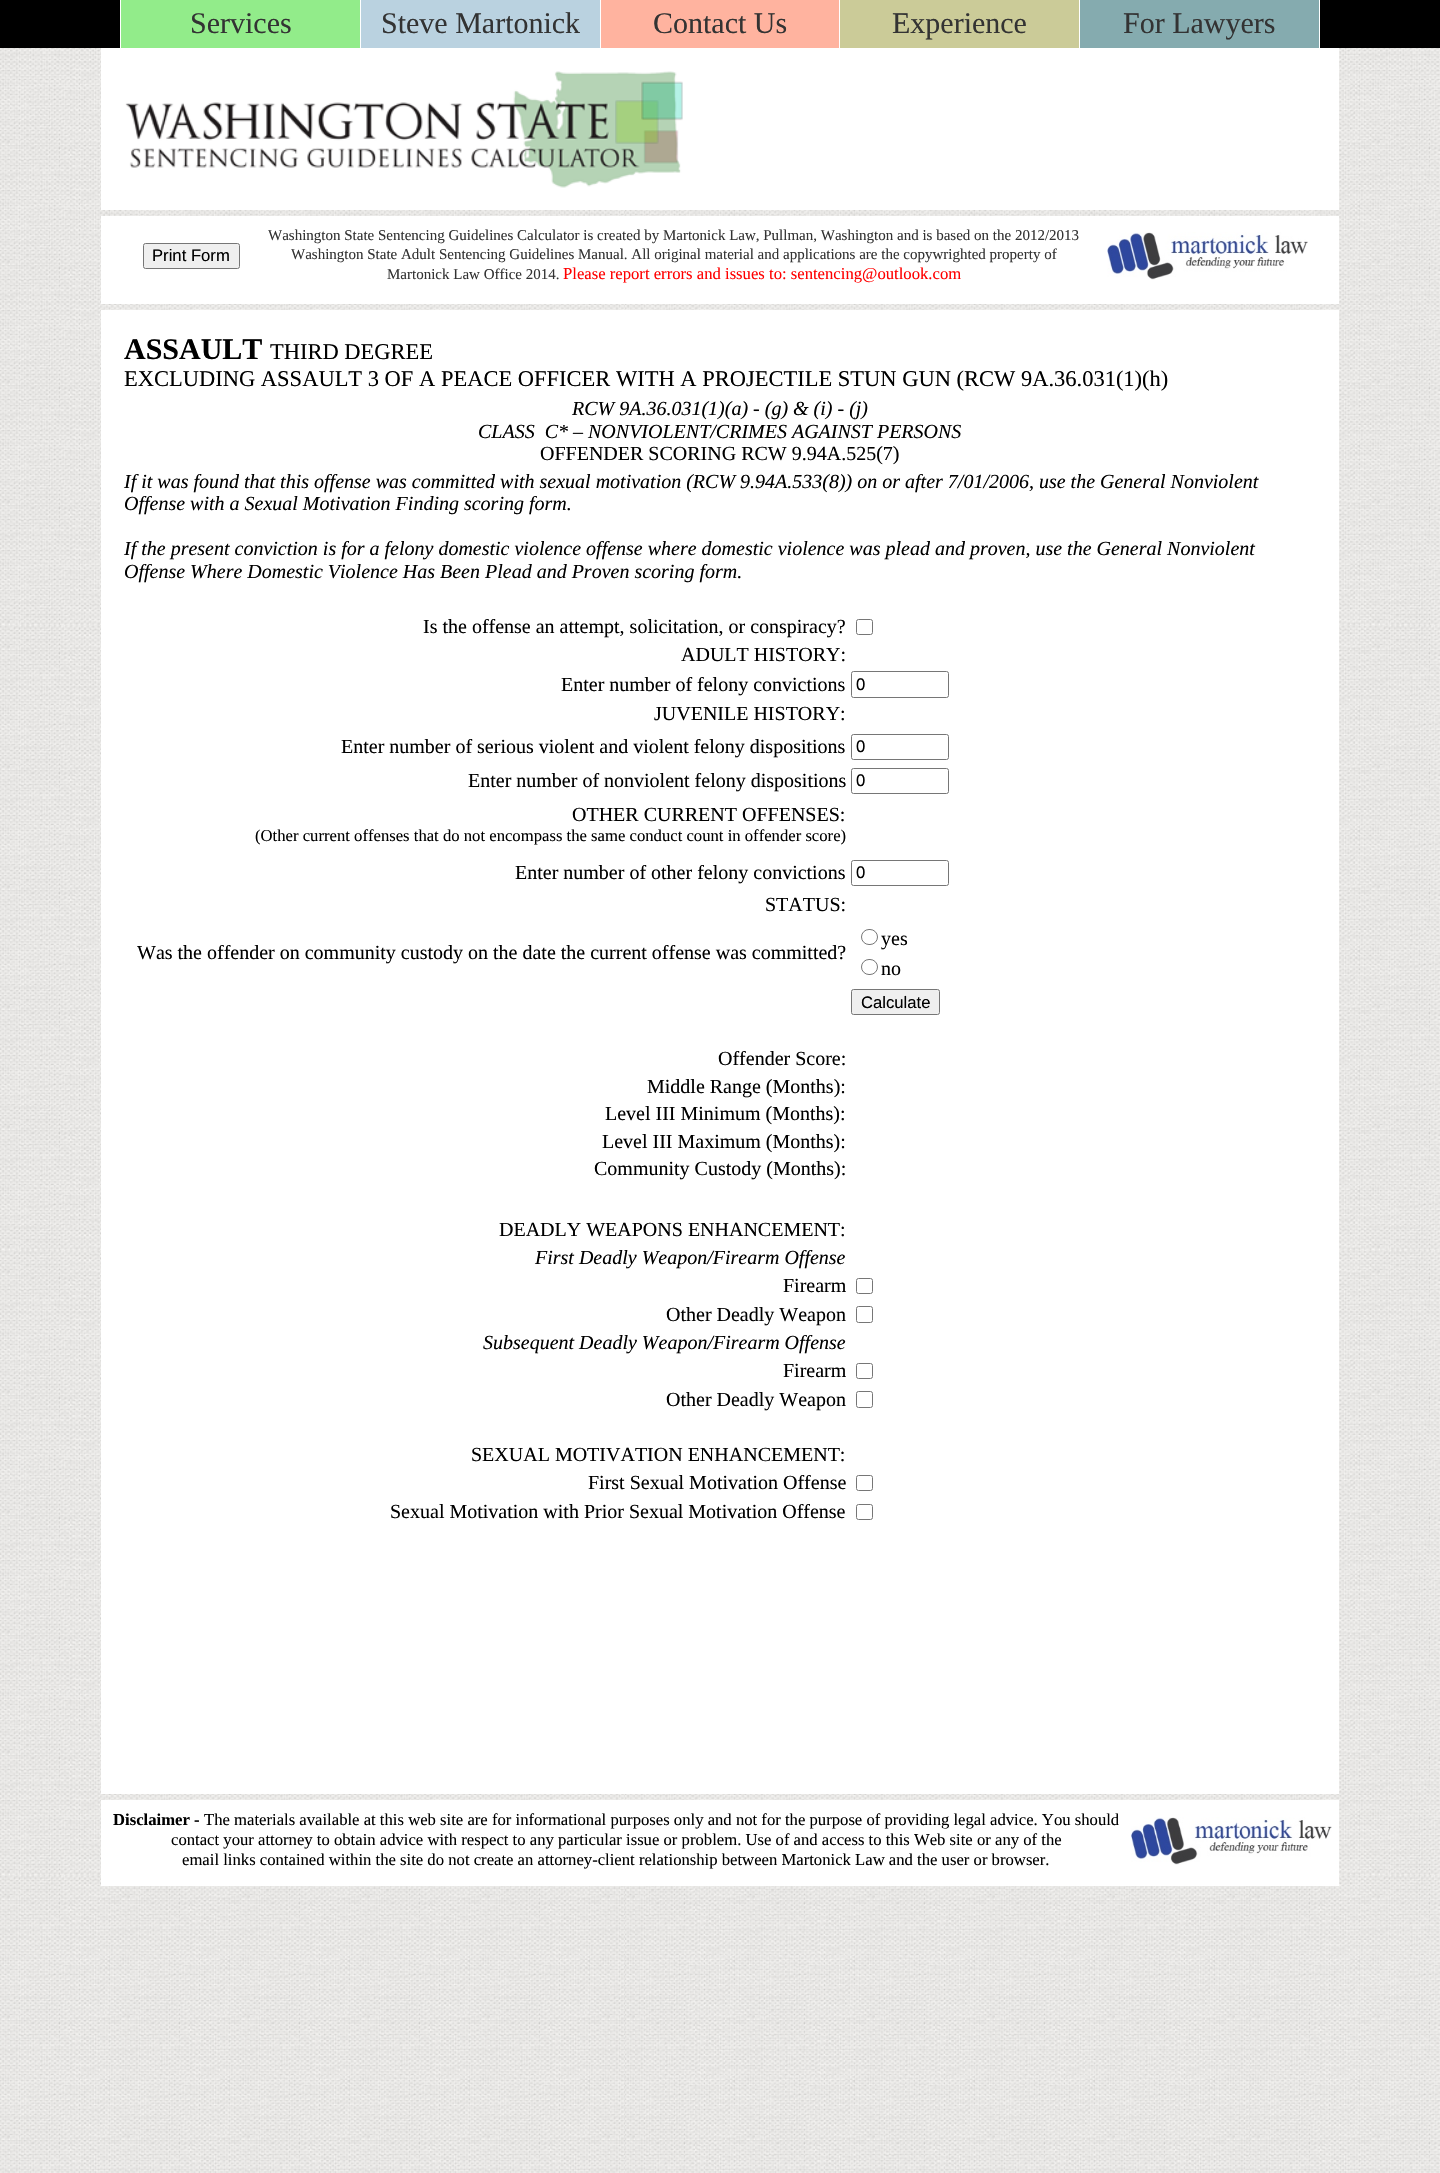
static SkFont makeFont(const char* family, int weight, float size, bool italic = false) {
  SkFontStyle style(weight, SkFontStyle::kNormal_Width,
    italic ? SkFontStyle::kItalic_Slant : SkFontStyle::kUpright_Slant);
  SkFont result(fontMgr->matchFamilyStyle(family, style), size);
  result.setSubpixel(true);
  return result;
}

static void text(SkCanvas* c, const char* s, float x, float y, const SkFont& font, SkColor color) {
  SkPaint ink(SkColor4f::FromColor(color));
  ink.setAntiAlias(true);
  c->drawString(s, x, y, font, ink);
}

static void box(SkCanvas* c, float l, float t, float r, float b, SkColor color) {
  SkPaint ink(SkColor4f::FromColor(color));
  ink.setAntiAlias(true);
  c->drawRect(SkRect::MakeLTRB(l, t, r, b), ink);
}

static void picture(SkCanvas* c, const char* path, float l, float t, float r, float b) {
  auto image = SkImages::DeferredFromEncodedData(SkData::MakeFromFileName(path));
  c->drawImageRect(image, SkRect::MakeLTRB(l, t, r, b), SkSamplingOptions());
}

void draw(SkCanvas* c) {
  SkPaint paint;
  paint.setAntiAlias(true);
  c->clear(0xffffffff);
  picture(c, "img_01.png", 0, 48, 1440, 2173);
  box(c, 0, 0, 1440, 48, 0xff000000);
  box(c, 121, 0, 360, 48, 0xff92ec8a);
  box(c, 360, 0, 361, 48, 0xffffffff);
  box(c, 120, 0, 121, 48, 0xffffffff);
  SkFont face1 = makeFont("Liberation Serif", 400, 30);
  text(c, "Services", 190, 33, face1, 0xff333333);
  box(c, 361, 0, 600, 48, 0xffbad2e0);
  box(c, 600, 0, 601, 48, 0xffffffff);
  text(c, "Steve Martonick", 381, 33, face1, 0xff333333);
  box(c, 601, 0, 839, 48, 0xffffb39f);
  box(c, 839, 0, 840, 48, 0xffffffff);
  text(c, "Contact Us", 653, 33, face1, 0xff333333);
  box(c, 840, 0, 1079, 48, 0xffcbcb98);
  box(c, 1079, 0, 1080, 48, 0xffffffff);
  text(c, "Experience", 892, 33, face1, 0xff333333);
  box(c, 1080, 0, 1319, 48, 0xff85abaf);
  box(c, 1319, 0, 1320, 48, 0xffffffff);
  text(c, "For Lawyers", 1123, 33, face1, 0xff333333);
  box(c, 101, 48, 1339, 210, 0xffffffff);
  picture(c, "img_02.png", 125, 71, 683, 188);
  box(c, 101, 216, 1339, 304, 0xffffffff);
  paint.setColor(0xffefefef);
  c->drawRoundRect(SkRect::MakeLTRB(143.5f, 243.5f, 239.5f, 268.5f), 2, 2, paint);
  paint.setStyle(SkPaint::kStroke_Style);
  paint.setStrokeWidth(1);
  paint.setColor(0xff767676);
  c->drawRoundRect(SkRect::MakeLTRB(143.5f, 243.5f, 239.5f, 268.5f), 2, 2, paint);
  SkFont face2 = makeFont("Liberation Sans", 400, 16.67f);
  text(c, "Print Form", 152, 261, face2, 0xff000000);
  SkFont face3 = makeFont("Liberation Serif", 400, 15);
  text(c, "Washington State Sentencing Guidelines Calculator is created by Martonick Law, Pullman, Washington and is based on the 2012/2013", 268, 240, face3, 0xff333333);
  text(c, "Washington State Adult Sentencing Guidelines Manual. All original material and applications are the copywrighted property of", 291, 259, face3, 0xff333333);
  text(c, "Martonick Law Office 2014.", 387, 279, face3, 0xff333333);
  SkFont face4 = makeFont("Liberation Serif", 400, 16.67f);
  text(c, "Please report errors and issues to: sentencing@outlook.com", 563, 279, face4, 0xffff0000);
  picture(c, "img_03.png", 1107, 232, 1308, 280);
  box(c, 101, 310, 1339, 1794, 0xffffffff);
  SkFont face5 = makeFont("Liberation Serif", 700, 30);
  text(c, "ASSAULT", 124, 359, face5, 0xff000000);
  SkFont face6 = makeFont("Liberation Serif", 400, 22.5f);
  text(c, "THIRD DEGREE", 270, 359, face6, 0xff000000);
  text(c, "EXCLUDING ASSAULT 3 OF A PEACE OFFICER WITH A PROJECTILE STUN GUN (RCW 9A.36.031(1)(h)", 124, 386, face6, 0xff000000);
  SkFont face7 = makeFont("Liberation Serif", 400, 20, true);
  text(c, "RCW 9A.36.031(1)(a) - (g) & (i) - (j)", 572, 415, face7, 0xff000000);
  text(c, "CLASS  C* – NONVIOLENT/CRIMES AGAINST PERSONS", 478, 438, face7, 0xff000000);
  SkFont face8 = makeFont("Liberation Serif", 400, 20);
  text(c, "OFFENDER SCORING RCW 9.94A.525(7)", 540, 460, face8, 0xff000000);
  text(c, "If it was found that this offense was committed with sexual motivation (RCW 9.94A.533(8)) on or after 7/01/2006, use the General Nonviolent", 124, 488, face7, 0xff000000);
  text(c, "Offense with a Sexual Motivation Finding scoring form.", 124, 510, face7, 0xff000000);
  text(c, "If the present conviction is for a felony domestic violence offense where domestic violence was plead and proven, use the General Nonviolent", 124, 555, face7, 0xff000000);
  text(c, "Offense Where Domestic Violence Has Been Plead and Proven scoring form.", 124, 578, face7, 0xff000000);
  text(c, "Is the offense an attempt, solicitation, or conspiracy?", 423, 633, face8, 0xff000000);
  c->drawRoundRect(SkRect::MakeLTRB(856.5f, 619.5f, 872.5f, 634.5f), 2, 2, paint);
  text(c, "ADULT HISTORY:", 681, 661, face8, 0xff000000);
  text(c, "Enter number of felony convictions", 561, 691, face8, 0xff000000);
  c->drawRoundRect(SkRect::MakeLTRB(851.5f, 671.5f, 948.5f, 697.5f), 2, 2, paint);
  text(c, "0", 856, 690, face2, 0xff000000);
  text(c, "JUVENILE HISTORY:", 654, 720, face8, 0xff000000);
  text(c, "Enter number of serious violent and violent felony dispositions", 341, 753, face8, 0xff000000);
  c->drawRoundRect(SkRect::MakeLTRB(851.5f, 734.5f, 948.5f, 759.5f), 2, 2, paint);
  text(c, "0", 856, 752, face2, 0xff000000);
  text(c, "Enter number of nonviolent felony dispositions", 468, 787, face8, 0xff000000);
  c->drawRoundRect(SkRect::MakeLTRB(851.5f, 768.5f, 948.5f, 793.5f), 2, 2, paint);
  text(c, "0", 856, 786, face2, 0xff000000);
  text(c, "OTHER CURRENT OFFENSES:", 572, 821, face8, 0xff000000);
  text(c, "(Other current offenses that do not encompass the same conduct count in offender score)", 255, 841, face4, 0xff000000);
  text(c, "Enter number of other felony convictions", 515, 879, face8, 0xff000000);
  c->drawRoundRect(SkRect::MakeLTRB(851.5f, 860.5f, 948.5f, 885.5f), 2, 2, paint);
  text(c, "0", 856, 878, face2, 0xff000000);
  text(c, "STATUS:", 765, 911, face8, 0xff000000);
  text(c, "Was the offender on community custody on the date the current offense was committed?", 137, 959, face8, 0xff000000);
  c->drawRoundRect(SkRect::MakeLTRB(861.5f, 929.5f, 877.5f, 944.5f), 7.5f, 7.5f, paint);
  text(c, "yes", 881, 945, face8, 0xff000000);
  c->drawRoundRect(SkRect::MakeLTRB(861.5f, 959.5f, 877.5f, 974.5f), 7.5f, 7.5f, paint);
  text(c, "no", 881, 975, face8, 0xff000000);
  paint.setStyle(SkPaint::kFill_Style);
  paint.setColor(0xffefefef);
  c->drawRoundRect(SkRect::MakeLTRB(851.5f, 989.5f, 939.5f, 1014.5f), 2, 2, paint);
  paint.setStyle(SkPaint::kStroke_Style);
  paint.setColor(0xff767676);
  c->drawRoundRect(SkRect::MakeLTRB(851.5f, 989.5f, 939.5f, 1014.5f), 2, 2, paint);
  text(c, "Calculate", 861, 1008, face2, 0xff000000);
  text(c, "Offender Score:", 718, 1065, face8, 0xff000000);
  text(c, "Middle Range (Months):", 647, 1093, face8, 0xff000000);
  text(c, "Level III Minimum (Months):", 605, 1120, face8, 0xff000000);
  text(c, "Level III Maximum (Months):", 602, 1148, face8, 0xff000000);
  text(c, "Community Custody (Months):", 594, 1175, face8, 0xff000000);
  text(c, "DEADLY WEAPONS ENHANCEMENT:", 499, 1236, face8, 0xff000000);
  text(c, "First Deadly Weapon/Firearm Offense", 535, 1264, face7, 0xff000000);
  text(c, "Firearm", 783, 1292, face8, 0xff000000);
  c->drawRoundRect(SkRect::MakeLTRB(856.5f, 1278.5f, 872.5f, 1293.5f), 2, 2, paint);
  text(c, "Other Deadly Weapon", 666, 1321, face8, 0xff000000);
  c->drawRoundRect(SkRect::MakeLTRB(856.5f, 1306.5f, 872.5f, 1322.5f), 2, 2, paint);
  text(c, "Subsequent Deadly Weapon/Firearm Offense", 483, 1349, face7, 0xff000000);
  text(c, "Firearm", 783, 1377, face8, 0xff000000);
  c->drawRoundRect(SkRect::MakeLTRB(856.5f, 1363.5f, 872.5f, 1378.5f), 2, 2, paint);
  text(c, "Other Deadly Weapon", 666, 1406, face8, 0xff000000);
  c->drawRoundRect(SkRect::MakeLTRB(856.5f, 1391.5f, 872.5f, 1407.5f), 2, 2, paint);
  text(c, "SEXUAL MOTIVATION ENHANCEMENT:", 471, 1461, face8, 0xff000000);
  text(c, "First Sexual Motivation Offense", 588, 1489, face8, 0xff000000);
  c->drawRoundRect(SkRect::MakeLTRB(856.5f, 1475.5f, 872.5f, 1490.5f), 2, 2, paint);
  text(c, "Sexual Motivation with Prior Sexual Motivation Offense", 390, 1518, face8, 0xff000000);
  c->drawRoundRect(SkRect::MakeLTRB(856.5f, 1504.5f, 872.5f, 1519.5f), 2, 2, paint);
  box(c, 101, 1800, 1339, 1886, 0xffffffff);
  SkFont face9 = makeFont("Liberation Serif", 700, 16.67f);
  text(c, "Disclaimer -", 113, 1825, face9, 0xff000000);
  text(c, "The materials available at this web site are for informational purposes only and not for the purpose of providing legal advice. You should", 204, 1825, face4, 0xff000000);
  text(c, "contact your attorney to obtain advice with respect to any particular issue or problem. Use of and access to this Web site or any of the", 171, 1845, face4, 0xff000000);
  text(c, "email links contained within the site do not create an attorney-client relationship between Martonick Law and the user or browser.", 182, 1865, face4, 0xff000000);
  picture(c, "img_04.png", 1131, 1817, 1332, 1865);
}
